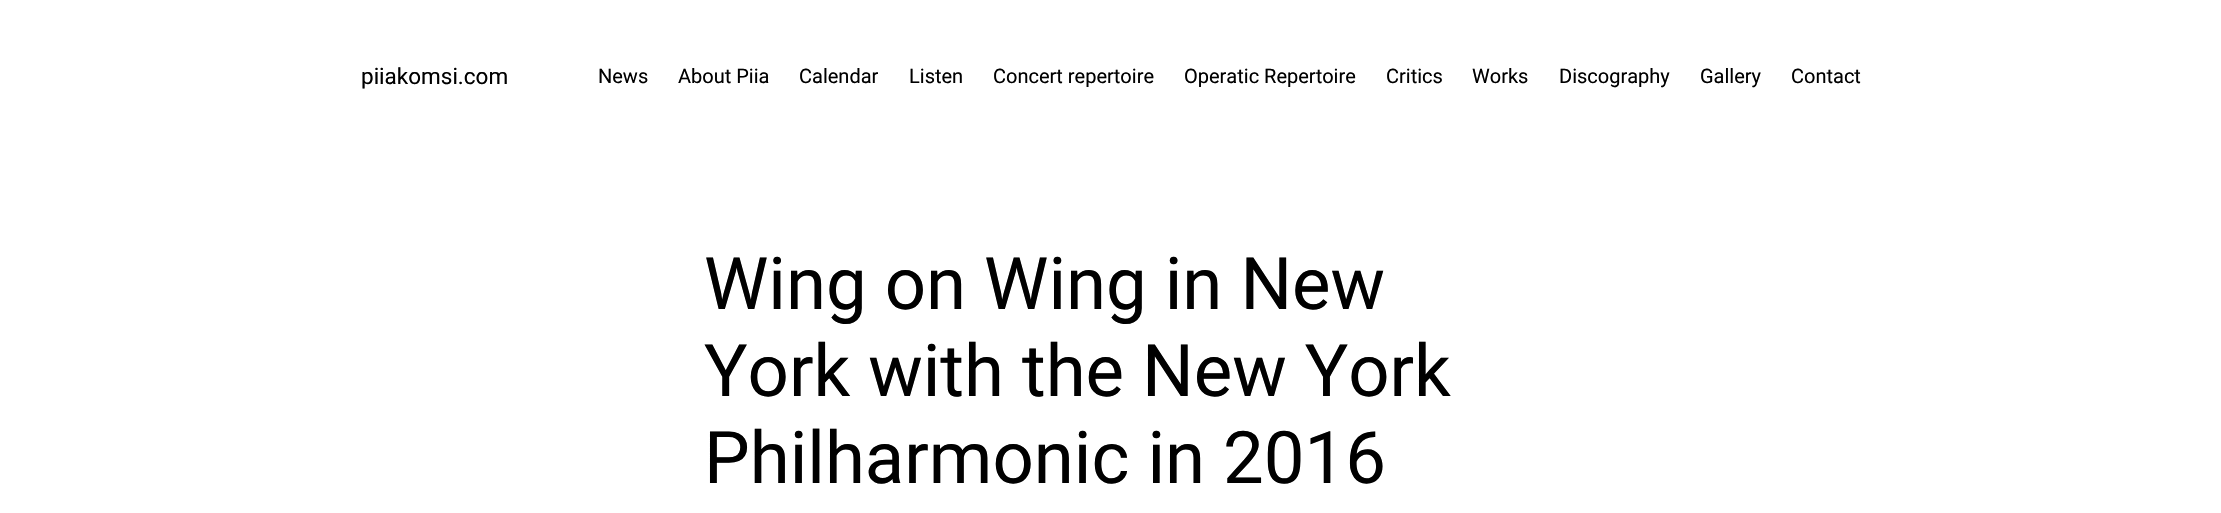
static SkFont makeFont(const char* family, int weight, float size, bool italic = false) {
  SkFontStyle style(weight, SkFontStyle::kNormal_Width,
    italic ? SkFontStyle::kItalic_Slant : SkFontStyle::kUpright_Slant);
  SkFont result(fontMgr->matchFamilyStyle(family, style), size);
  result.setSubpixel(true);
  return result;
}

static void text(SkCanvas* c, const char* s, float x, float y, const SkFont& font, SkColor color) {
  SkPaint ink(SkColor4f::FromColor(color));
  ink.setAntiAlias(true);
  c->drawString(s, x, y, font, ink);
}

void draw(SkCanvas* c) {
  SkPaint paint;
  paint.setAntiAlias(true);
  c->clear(0xffffffff);
  SkFont face1 = makeFont("Roboto", 400, 22.5f);
  text(c, "piiakomsi.com", 361, 84, face1, 0xff000000);
  SkFont face2 = makeFont("Roboto", 400, 20);
  text(c, "News", 598, 83, face2, 0xff000000);
  text(c, "About Piia", 678, 83, face2, 0xff000000);
  text(c, "Calendar", 799, 83, face2, 0xff000000);
  text(c, "Listen", 909, 83, face2, 0xff000000);
  text(c, "Concert repertoire", 993, 83, face2, 0xff000000);
  text(c, "Operatic Repertoire", 1184, 83, face2, 0xff000000);
  text(c, "Critics", 1386, 83, face2, 0xff000000);
  text(c, "Works", 1472, 83, face2, 0xff000000);
  text(c, "Discography", 1559, 83, face2, 0xff000000);
  text(c, "Gallery", 1700, 83, face2, 0xff000000);
  text(c, "Contact", 1791, 83, face2, 0xff000000);
  SkFont face3 = makeFont("Roboto", 400, 72.5f);
  text(c, "Wing on Wing in New", 704, 309, face3, 0xff000000);
  text(c, "York with the New York", 704, 396, face3, 0xff000000);
  text(c, "Philharmonic in 2016", 704, 483, face3, 0xff000000);
}
